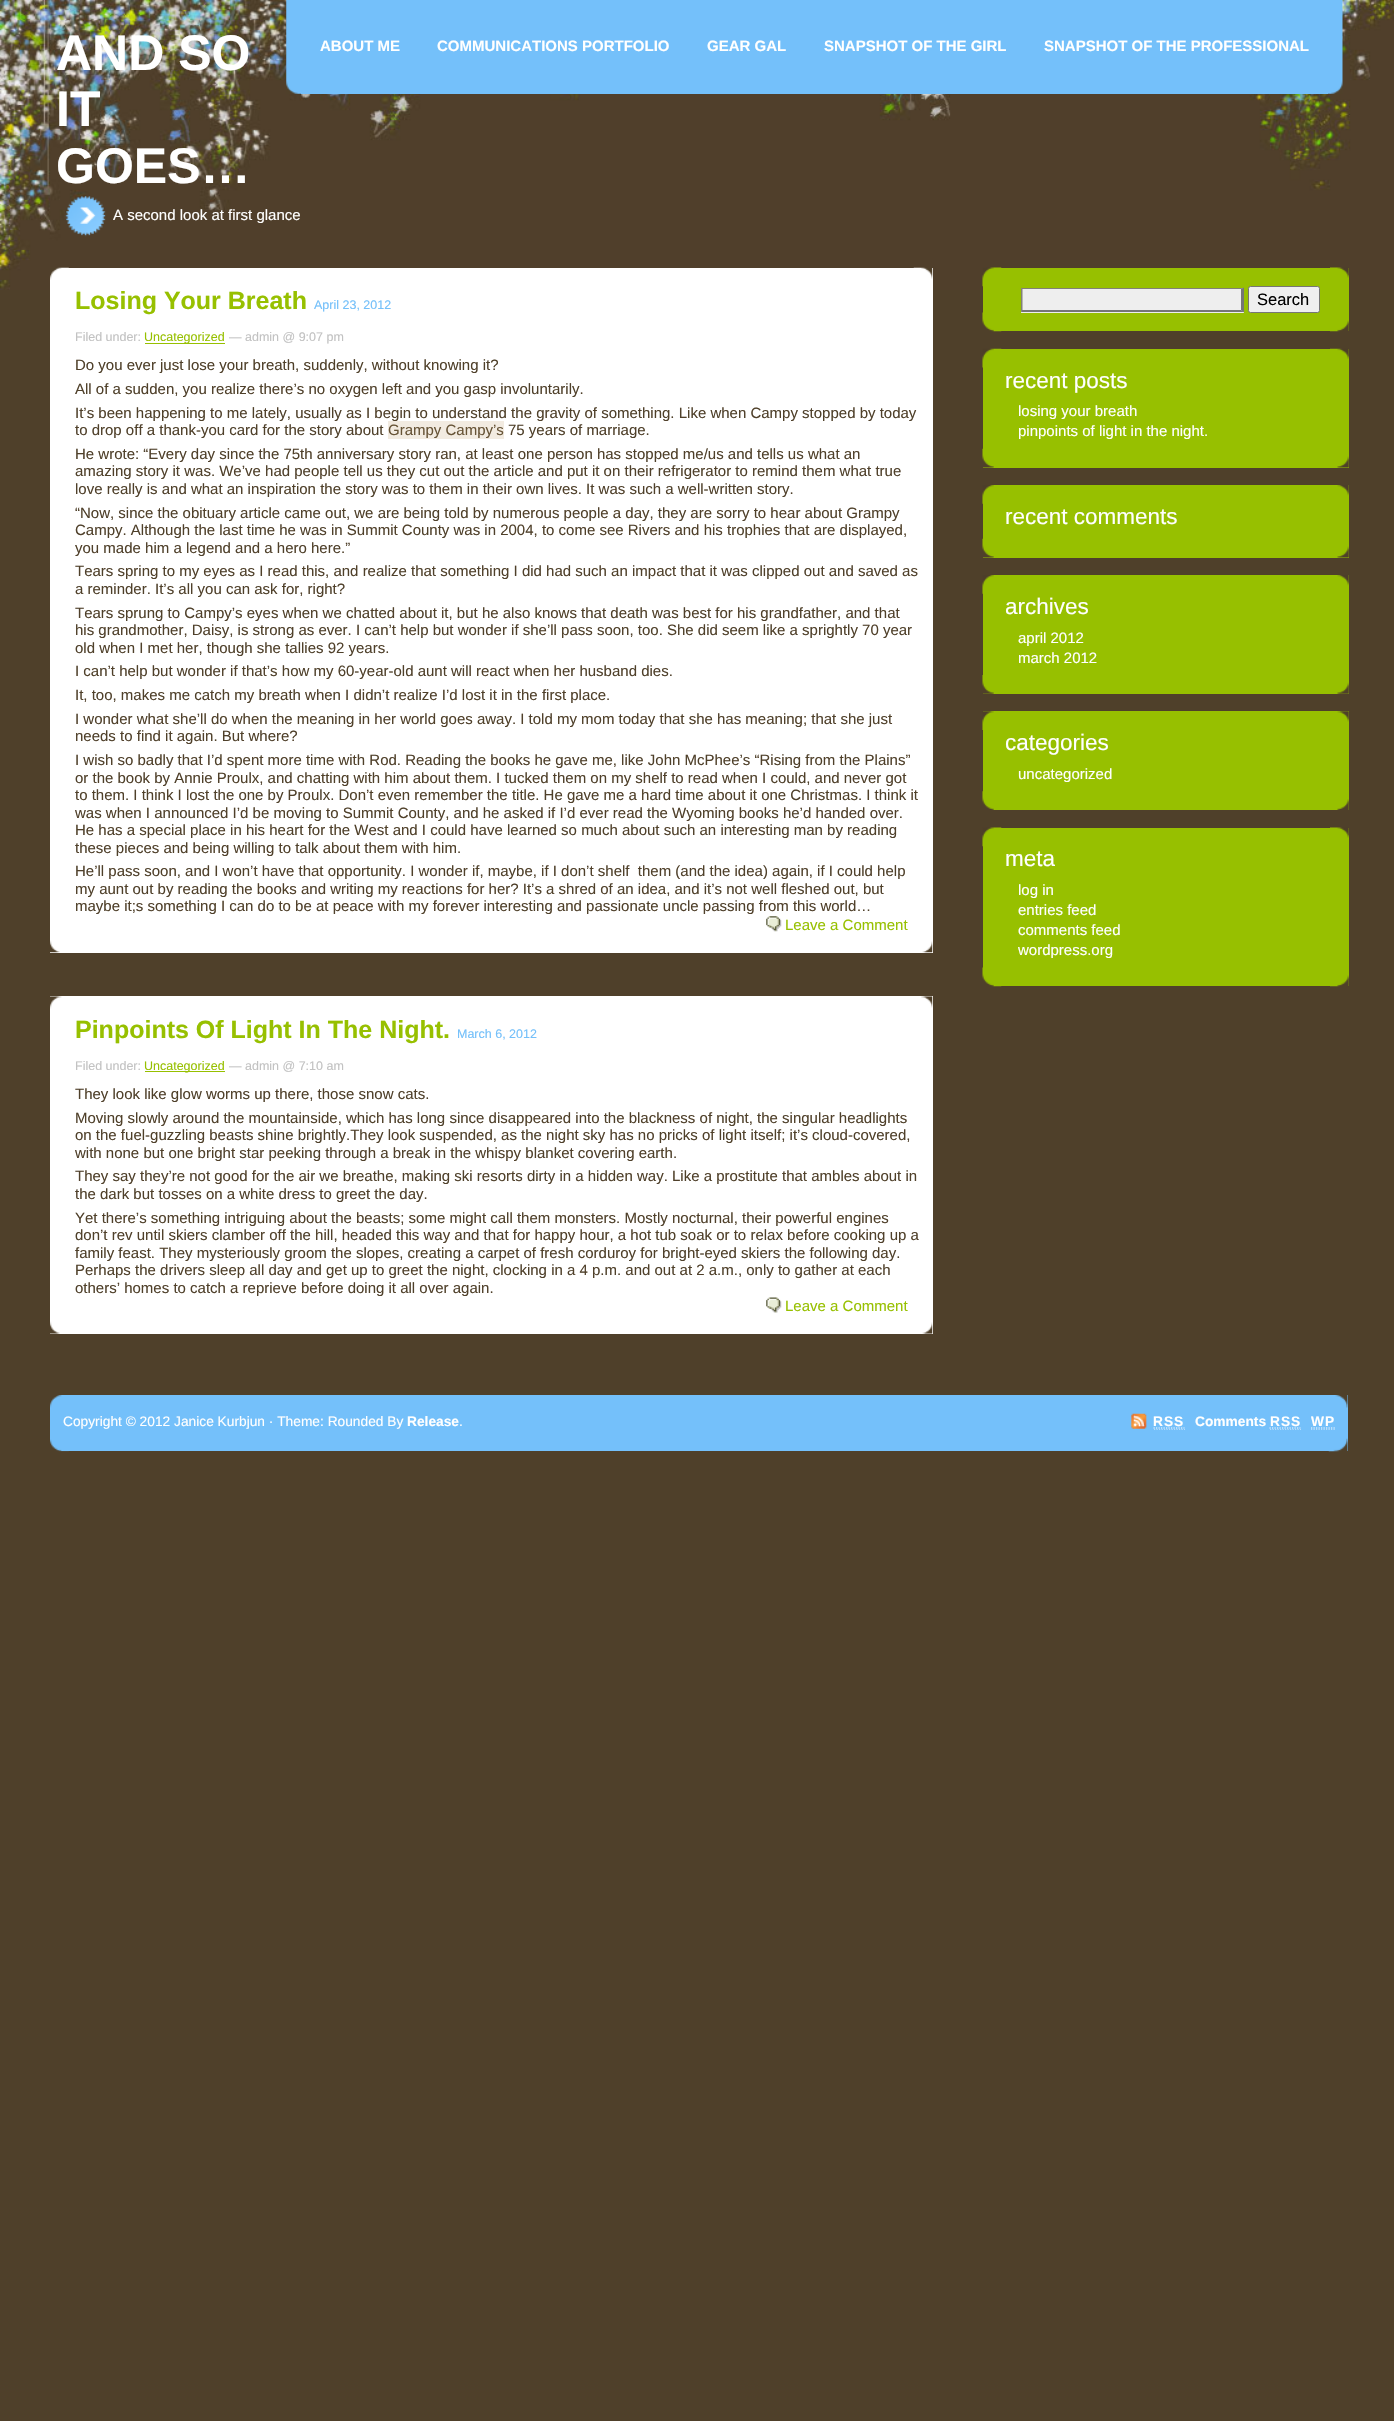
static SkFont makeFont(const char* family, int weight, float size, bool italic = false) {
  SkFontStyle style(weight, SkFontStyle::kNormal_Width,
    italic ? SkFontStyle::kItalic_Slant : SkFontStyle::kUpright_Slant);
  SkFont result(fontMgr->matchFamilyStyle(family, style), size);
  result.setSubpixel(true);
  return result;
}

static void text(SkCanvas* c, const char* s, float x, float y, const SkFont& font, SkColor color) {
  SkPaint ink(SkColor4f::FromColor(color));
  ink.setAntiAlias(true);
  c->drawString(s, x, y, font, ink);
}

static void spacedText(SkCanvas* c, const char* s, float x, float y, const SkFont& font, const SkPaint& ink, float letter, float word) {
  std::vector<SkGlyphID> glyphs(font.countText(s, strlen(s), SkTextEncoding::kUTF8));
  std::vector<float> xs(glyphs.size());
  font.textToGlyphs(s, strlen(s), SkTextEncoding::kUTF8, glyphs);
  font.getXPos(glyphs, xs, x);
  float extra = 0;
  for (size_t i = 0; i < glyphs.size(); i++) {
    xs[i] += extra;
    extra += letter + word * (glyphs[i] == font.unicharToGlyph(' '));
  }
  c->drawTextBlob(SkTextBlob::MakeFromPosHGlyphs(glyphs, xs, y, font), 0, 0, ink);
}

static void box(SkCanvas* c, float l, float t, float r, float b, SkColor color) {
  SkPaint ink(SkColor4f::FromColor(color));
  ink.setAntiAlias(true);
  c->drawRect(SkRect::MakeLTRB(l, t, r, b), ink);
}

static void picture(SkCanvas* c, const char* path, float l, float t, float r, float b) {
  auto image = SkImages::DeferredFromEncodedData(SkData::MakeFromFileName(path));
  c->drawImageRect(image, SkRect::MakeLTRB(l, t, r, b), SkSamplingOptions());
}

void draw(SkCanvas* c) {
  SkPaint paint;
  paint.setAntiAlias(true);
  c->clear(0xff4f402a);
  picture(c, "img_01.png", 0, 0, 1394, 290);
  SkFont face1 = makeFont("Liberation Sans", 700, 50);
  text(c, "AND SO", 56, 70, face1, 0xffffffff);
  text(c, "IT", 56, 126, face1, 0xffffffff);
  text(c, "GOES…", 56, 183, face1, 0xffffffff);
  picture(c, "img_02.png", 286, 0, 301, 94);
  box(c, 301, 0, 1328, 94, 0xff74c0fa);
  SkFont face2 = makeFont("Liberation Sans", 700, 15);
  text(c, "ABOUT ME", 320, 51, face2, 0xffffffff);
  text(c, "COMMUNICATIONS PORTFOLIO", 437, 51, face2, 0xffffffff);
  text(c, "GEAR GAL", 707, 51, face2, 0xffffffff);
  text(c, "SNAPSHOT OF THE GIRL", 824, 51, face2, 0xffffffff);
  text(c, "SNAPSHOT OF THE PROFESSIONAL", 1044, 51, face2, 0xffffffff);
  picture(c, "img_03.png", 1328, 0, 1343, 94);
  picture(c, "img_04.png", 65, 196, 106, 237);
  SkFont face3 = makeFont("Liberation Sans", 400, 15);
  text(c, "A second look at first glance", 113, 220, face3, 0xffffffff);
  box(c, 50, 268, 933, 953, 0xffffffff);
  picture(c, "img_05.png", 913, 267, 933, 279);
  picture(c, "img_06.png", 50, 267, 69, 280);
  SkFont face4 = makeFont("Liberation Sans", 700, 25);
  text(c, "Losing Your Breath", 75, 309, face4, 0xff97c000);
  SkFont face5 = makeFont("Liberation Sans", 400, 12.5f);
  text(c, "April 23, 2012", 314, 309, face5, 0xff74c0fa);
  text(c, "Filed under:", 75, 341, face5, 0xffc2c2c2);
  box(c, 145, 343, 225, 344, 0xff97c000);
  text(c, "Uncategorized", 144, 341, face5, 0xff97c000);
  text(c, "— admin @ 9:07 pm", 229, 341, face5, 0xffc2c2c2);
  text(c, "Do you ever just lose your breath, suddenly, without knowing it?", 75, 370, face3, 0xff4f402a);
  text(c, "All of a sudden, you realize there’s no oxygen left and you gasp involuntarily.", 75, 394, face3, 0xff4f402a);
  text(c, "It’s been happening to me lately, usually as I begin to understand the gravity of something. Like when Campy stopped by today", 75, 418, face3, 0xff4f402a);
  text(c, "to drop off a thank-you card for the story about", 75, 435, face3, 0xff4f402a);
  box(c, 388, 421, 504, 439, 0xfff2ebe1);
  text(c, "Grampy Campy’s", 388, 435, face3, 0xff675437);
  text(c, "75 years of marriage.", 508, 435, face3, 0xff4f402a);
  text(c, "He wrote: “Every day since the 75th anniversary story ran, at least one person has stopped me/us and tells us what an", 75, 459, face3, 0xff4f402a);
  text(c, "amazing story it was. We’ve had people tell us they cut out the article and put it on their refrigerator to remind them what true", 75, 476, face3, 0xff4f402a);
  text(c, "love really is and what an inspiration the story was to them in their own lives. It was such a well-written story.", 75, 494, face3, 0xff4f402a);
  text(c, "“Now, since the obituary article came out, we are being told by numerous people a day, they are sorry to hear about Grampy", 75, 518, face3, 0xff4f402a);
  text(c, "Campy. Although the last time he was in Summit County was in 2004, to come see Rivers and his trophies that are displayed,", 75, 535, face3, 0xff4f402a);
  text(c, "you made him a legend and a hero here.”", 75, 553, face3, 0xff4f402a);
  text(c, "Tears spring to my eyes as I read this, and realize that something I did had such an impact that it was clipped out and saved as", 75, 576, face3, 0xff4f402a);
  text(c, "a reminder. It’s all you can ask for, right?", 75, 594, face3, 0xff4f402a);
  text(c, "Tears sprung to Campy’s eyes when we chatted about it, but he also knows that death was best for his grandfather, and that", 75, 618, face3, 0xff4f402a);
  text(c, "his grandmother, Daisy, is strong as ever. I can’t help but wonder if she’ll pass soon, too. She did seem like a sprightly 70 year", 75, 635, face3, 0xff4f402a);
  text(c, "old when I met her, though she tallies 92 years.", 75, 653, face3, 0xff4f402a);
  text(c, "I can’t help but wonder if that’s how my 60-year-old aunt will react when her husband dies.", 75, 676, face3, 0xff4f402a);
  text(c, "It, too, makes me catch my breath when I didn’t realize I’d lost it in the first place.", 75, 700, face3, 0xff4f402a);
  text(c, "I wonder what she’ll do when the meaning in her world goes away. I told my mom today that she has meaning; that she just", 75, 724, face3, 0xff4f402a);
  text(c, "needs to find it again. But where?", 75, 741, face3, 0xff4f402a);
  text(c, "I wish so badly that I’d spent more time with Rod. Reading the books he gave me, like John McPhee’s “Rising from the Plains”", 75, 765, face3, 0xff4f402a);
  text(c, "or the book by Annie Proulx, and chatting with him about them. I tucked them on my shelf to read when I could, and never got", 75, 783, face3, 0xff4f402a);
  text(c, "to them. I think I lost the one by Proulx. Don’t even remember the title. He gave me a hard time about it one Christmas. I think it", 75, 800, face3, 0xff4f402a);
  text(c, "was when I announced I’d be moving to Summit County, and he asked if I’d ever read the Wyoming books he’d handed over.", 75, 818, face3, 0xff4f402a);
  text(c, "He has a special place in his heart for the West and I could have learned so much about such an interesting man by reading", 75, 835, face3, 0xff4f402a);
  text(c, "these pieces and being willing to talk about them with him.", 75, 853, face3, 0xff4f402a);
  text(c, "He’ll pass soon, and I won’t have that opportunity. I wonder if, maybe, if I don’t shelf  them (and the idea) again, if I could help", 75, 876, face3, 0xff4f402a);
  text(c, "my aunt out by reading the books and writing my reactions for her? It’s a shred of an idea, and it’s not well fleshed out, but", 75, 894, face3, 0xff4f402a);
  text(c, "maybe it;s something I can do to be at peace with my forever interesting and passionate uncle passing from this world…", 75, 911, face3, 0xff4f402a);
  picture(c, "img_07.png", 766, 916, 782, 932);
  text(c, "Leave a Comment", 785, 930, face3, 0xff97c000);
  picture(c, "img_08.png", 922, 941, 933, 953);
  picture(c, "img_09.png", 50, 940, 60, 953);
  box(c, 50, 996, 933, 1334, 0xffffffff);
  picture(c, "img_10.png", 921, 996, 933, 1008);
  picture(c, "img_11.png", 50, 996, 62, 1009);
  text(c, "Pinpoints Of Light In The Night.", 75, 1038, face4, 0xff97c000);
  text(c, "March 6, 2012", 457, 1038, face5, 0xff74c0fa);
  text(c, "Filed under:", 75, 1070, face5, 0xffc2c2c2);
  box(c, 145, 1071, 225, 1072, 0xff97c000);
  text(c, "Uncategorized", 144, 1070, face5, 0xff97c000);
  text(c, "— admin @ 7:10 am", 229, 1070, face5, 0xffc2c2c2);
  text(c, "They look like glow worms up there, those snow cats.", 75, 1099, face3, 0xff4f402a);
  text(c, "Moving slowly around the mountainside, which has long since disappeared into the blackness of night, the singular headlights", 75, 1123, face3, 0xff4f402a);
  text(c, "on the fuel-guzzling beasts shine brightly.They look suspended, as the night sky has no pricks of light itself; it’s cloud-covered,", 75, 1140, face3, 0xff4f402a);
  text(c, "with none but one bright star peeking through a break in the whispy blanket covering earth.", 75, 1158, face3, 0xff4f402a);
  text(c, "They say they’re not good for the air we breathe, making ski resorts dirty in a hidden way. Like a prostitute that ambles about in", 75, 1181, face3, 0xff4f402a);
  text(c, "the dark but tosses on a white dress to greet the day.", 75, 1199, face3, 0xff4f402a);
  text(c, "Yet there’s something intriguing about the beasts; some might call them monsters. Mostly nocturnal, their powerful engines", 75, 1223, face3, 0xff4f402a);
  text(c, "don’t rev until skiers clamber off the hill, headed this way and that for happy hour, a hot tub soak or to relax before cooking up a", 75, 1240, face3, 0xff4f402a);
  text(c, "family feast. They mysteriously groom the slopes, creating a carpet of fresh corduroy for bright-eyed skiers the following day.", 75, 1258, face3, 0xff4f402a);
  text(c, "Perhaps the drivers sleep all day and get up to greet the night, clocking in a 4 p.m. and out at 2 a.m., only to gather at each", 75, 1275, face3, 0xff4f402a);
  text(c, "others’ homes to catch a reprieve before doing it all over again.", 75, 1293, face3, 0xff4f402a);
  picture(c, "img_12.png", 766, 1297, 782, 1313);
  text(c, "Leave a Comment", 785, 1311, face3, 0xff97c000);
  picture(c, "img_13.png", 922, 1322, 933, 1334);
  picture(c, "img_14.png", 50, 1321, 60, 1334);
  box(c, 983, 268, 1349, 331, 0xff97c000);
  picture(c, "img_15.png", 1330, 267, 1349, 278);
  picture(c, "img_16.png", 982, 267, 1002, 287);
  box(c, 1021, 288, 1244, 313, 0xffeeeeee);
  paint.setColor(0xff828177);
  c->drawPath(SkPathBuilder().moveTo(1021, 288).lineTo(1244, 288).lineTo(1241, 289).lineTo(1022, 289).close().detach(), paint);
  paint.setColor(0xff767676);
  c->drawPath(SkPathBuilder().moveTo(1244, 287.5f).lineTo(1244, 312.5f).lineTo(1241, 310).lineTo(1241, 289).close().detach(), paint);
  c->drawPath(SkPathBuilder().moveTo(1244, 312).lineTo(1021, 312).lineTo(1022, 310).lineTo(1241, 310).close().detach(), paint);
  paint.setColor(0xff828177);
  c->drawPath(SkPathBuilder().moveTo(1021, 312.5f).lineTo(1021, 287.5f).lineTo(1022.5f, 289).lineTo(1022.5f, 310).close().detach(), paint);
  paint.setColor(0xffefefef);
  c->drawRoundRect(SkRect::MakeLTRB(1248.5f, 286.5f, 1319.5f, 312.5f), 2, 2, paint);
  paint.setStyle(SkPaint::kStroke_Style);
  paint.setStrokeWidth(1);
  paint.setColor(0xff767676);
  c->drawRoundRect(SkRect::MakeLTRB(1248.5f, 286.5f, 1319.5f, 312.5f), 2, 2, paint);
  SkFont face6 = makeFont("Liberation Sans", 400, 16.5f);
  text(c, "Search", 1257, 305, face6, 0xff000000);
  picture(c, "img_17.png", 1330, 320, 1349, 332);
  picture(c, "img_18.png", 982, 312, 1002, 332);
  box(c, 983, 349, 1349, 468, 0xff97c000);
  picture(c, "img_19.png", 1330, 348, 1349, 359);
  picture(c, "img_20.png", 982, 348, 1002, 368);
  SkFont face7 = makeFont("Liberation Sans", 400, 22.5f);
  text(c, "recent posts", 1005, 388, face7, 0xffffffff);
  text(c, "losing your breath", 1018, 416, face3, 0xffffffff);
  text(c, "pinpoints of light in the night.", 1018, 436, face3, 0xffffffff);
  picture(c, "img_21.png", 1337, 456, 1349, 468);
  picture(c, "img_22.png", 982, 448, 994, 468);
  box(c, 983, 485, 1349, 558, 0xff97c000);
  picture(c, "img_23.png", 1337, 485, 1349, 496);
  picture(c, "img_24.png", 982, 485, 994, 504);
  text(c, "recent comments", 1005, 524, face7, 0xffffffff);
  picture(c, "img_21.png", 1337, 546, 1349, 558);
  picture(c, "img_22.png", 982, 538, 994, 558);
  box(c, 983, 575, 1349, 694, 0xff97c000);
  picture(c, "img_23.png", 1337, 575, 1349, 586);
  picture(c, "img_24.png", 982, 575, 994, 594);
  text(c, "archives", 1005, 614, face7, 0xffffffff);
  text(c, "april 2012", 1018, 643, face3, 0xffffffff);
  text(c, "march 2012", 1018, 663, face3, 0xffffffff);
  picture(c, "img_25.png", 1337, 682, 1349, 694);
  picture(c, "img_26.png", 982, 675, 994, 694);
  box(c, 983, 711, 1349, 810, 0xff97c000);
  picture(c, "img_27.png", 1337, 711, 1349, 722);
  picture(c, "img_28.png", 982, 711, 994, 730);
  text(c, "categories", 1005, 750, face7, 0xffffffff);
  text(c, "uncategorized", 1018, 779, face3, 0xffffffff);
  picture(c, "img_29.png", 1337, 799, 1349, 810);
  picture(c, "img_30.png", 982, 791, 994, 810);
  box(c, 983, 828, 1349, 986, 0xff97c000);
  picture(c, "img_31.png", 1330, 827, 1349, 838);
  picture(c, "img_32.png", 982, 827, 1002, 847);
  text(c, "meta", 1005, 866, face7, 0xffffffff);
  text(c, "log in", 1018, 895, face3, 0xffffffff);
  text(c, "entries feed", 1018, 915, face3, 0xffffffff);
  text(c, "comments feed", 1018, 935, face3, 0xffffffff);
  text(c, "wordpress.org", 1018, 955, face3, 0xffffffff);
  picture(c, "img_17.png", 1330, 975, 1349, 987);
  picture(c, "img_18.png", 982, 967, 1002, 987);
  box(c, 50, 1395, 1348, 1451, 0xff74c0fa);
  picture(c, "img_33.png", 1335, 1395, 1348, 1408);
  picture(c, "img_34.png", 50, 1395, 62, 1408);
  SkFont face8 = makeFont("Liberation Sans", 400, 13.75f);
  text(c, "Copyright © 2012 Janice Kurbjun · Theme: Rounded By", 63, 1426, face8, 0xffffffff);
  SkFont face9 = makeFont("Liberation Sans", 700, 13.75f);
  text(c, "Release", 407, 1426, face9, 0xffffffff);
  text(c, ".", 459, 1426, face8, 0xffffffff);
  picture(c, "img_35.png", 1131, 1413, 1147, 1429);
  paint.setStyle(SkPaint::kFill_Style);
  paint.setColor(0xffffffff);
  spacedText(c, "RSS", 1153, 1426, face9, paint, 1, 0);
  paint.setStyle(SkPaint::kStroke_Style);
  paint.setStrokeWidth(1.2f);
  paint.setColor(0xffb5dcfa);
  paint.setPathEffect(SkDashPathEffect::Make({{1.25f, 1.25f}}, 0));
  c->drawPath(SkPathBuilder().moveTo(1154, 1429.5f).lineTo(1185, 1429.5f).detach(), paint);
  paint.setPathEffect(nullptr);
  paint.setColor(0xffffffff);
  paint.setPathEffect(SkDashPathEffect::Make({{1.25f, 1.25f}}, 0));
  c->drawPath(SkPathBuilder().moveTo(1153.5f, 1428).lineTo(1184.5f, 1428).detach(), paint);
  paint.setPathEffect(nullptr);
  text(c, "Comments", 1195, 1426, face9, 0xffffffff);
  paint.setStyle(SkPaint::kFill_Style);
  spacedText(c, "RSS", 1270, 1426, face9, paint, 1, 0);
  paint.setStyle(SkPaint::kStroke_Style);
  paint.setColor(0xffb5dcfa);
  paint.setPathEffect(SkDashPathEffect::Make({{1.25f, 1.25f}}, 0));
  c->drawPath(SkPathBuilder().moveTo(1270, 1429.5f).lineTo(1301, 1429.5f).detach(), paint);
  paint.setPathEffect(nullptr);
  paint.setColor(0xffffffff);
  paint.setPathEffect(SkDashPathEffect::Make({{1.25f, 1.25f}}, 0));
  c->drawPath(SkPathBuilder().moveTo(1269.5f, 1428).lineTo(1300.5f, 1428).detach(), paint);
  paint.setPathEffect(nullptr);
  paint.setStyle(SkPaint::kFill_Style);
  spacedText(c, "WP", 1311, 1426, face9, paint, 1, 0);
  paint.setStyle(SkPaint::kStroke_Style);
  paint.setColor(0xffb5dcfa);
  paint.setPathEffect(SkDashPathEffect::Make({{1.25f, 1.25f}}, 0));
  c->drawPath(SkPathBuilder().moveTo(1311, 1429.5f).lineTo(1335, 1429.5f).detach(), paint);
  paint.setPathEffect(nullptr);
  paint.setColor(0xffffffff);
  paint.setPathEffect(SkDashPathEffect::Make({{1.25f, 1.25f}}, 0));
  c->drawPath(SkPathBuilder().moveTo(1311, 1428).lineTo(1335, 1428).detach(), paint);
  paint.setPathEffect(nullptr);
  picture(c, "img_36.png", 1328, 1438, 1348, 1452);
  picture(c, "img_37.png", 50, 1439, 69, 1452);
}
